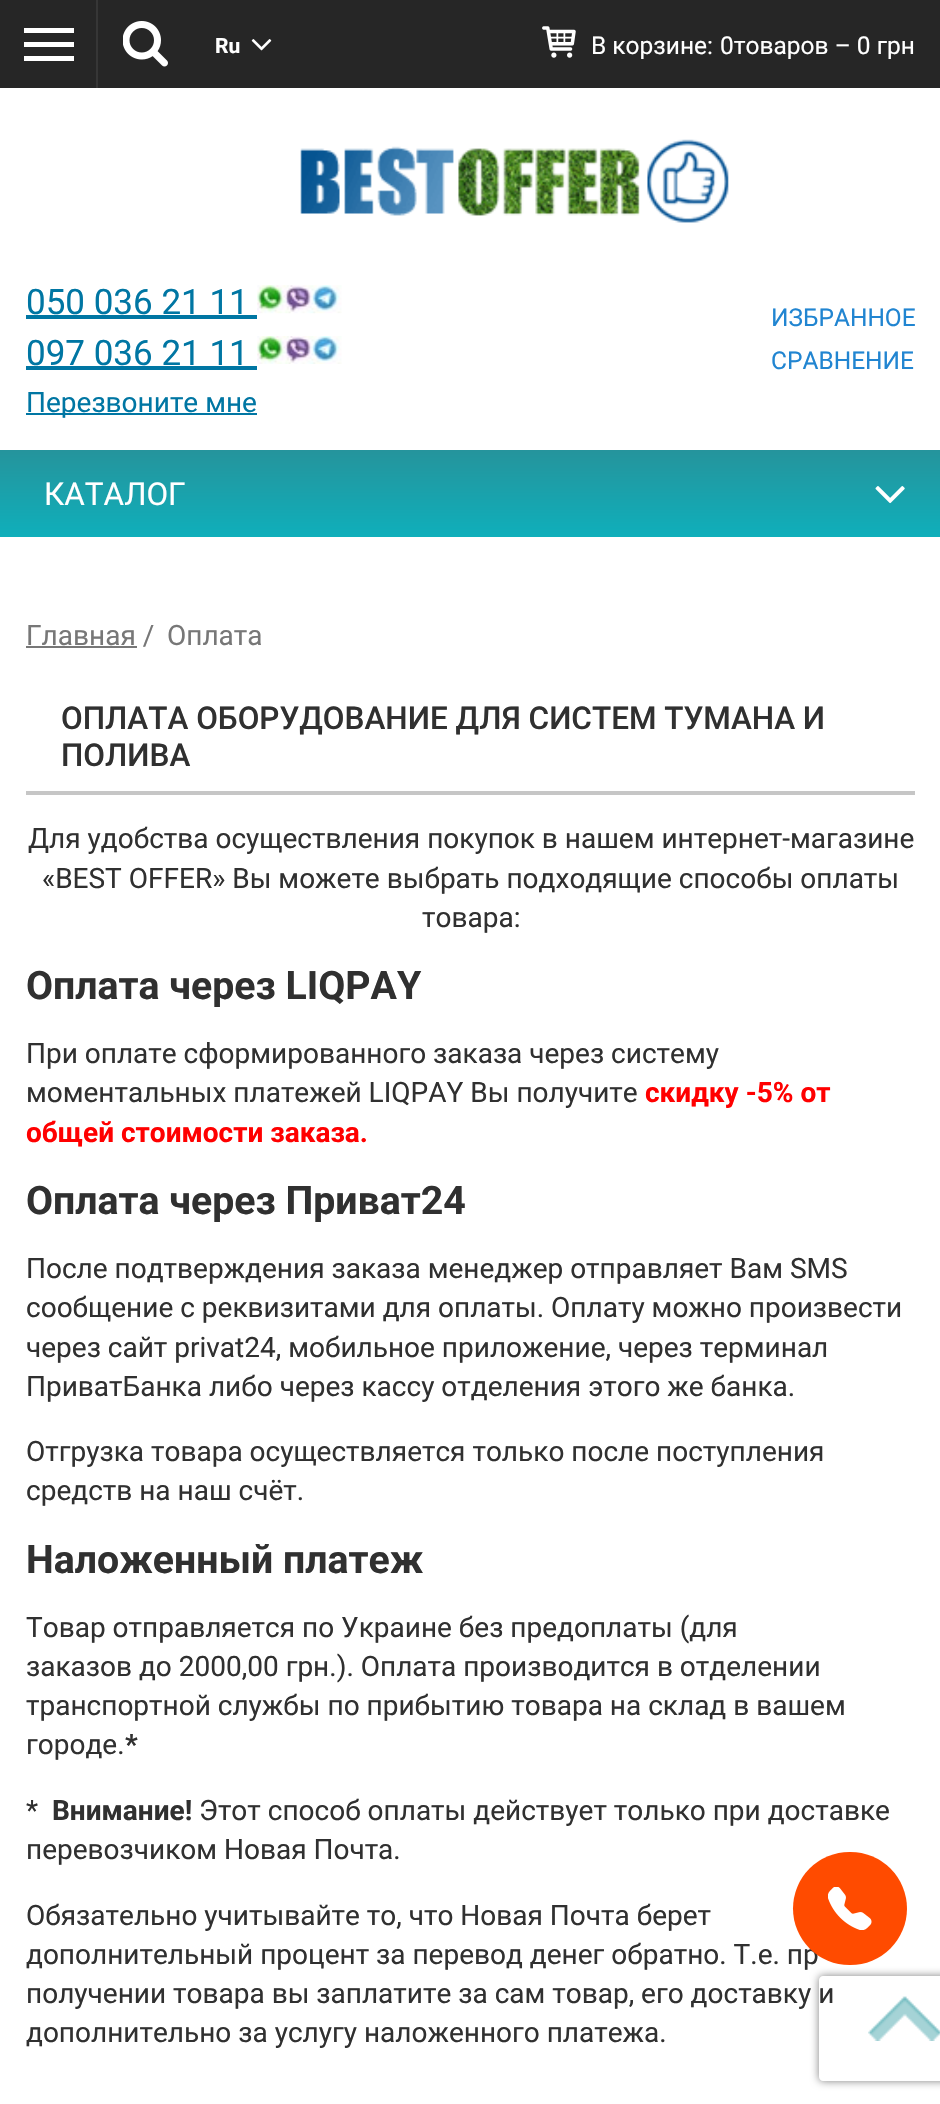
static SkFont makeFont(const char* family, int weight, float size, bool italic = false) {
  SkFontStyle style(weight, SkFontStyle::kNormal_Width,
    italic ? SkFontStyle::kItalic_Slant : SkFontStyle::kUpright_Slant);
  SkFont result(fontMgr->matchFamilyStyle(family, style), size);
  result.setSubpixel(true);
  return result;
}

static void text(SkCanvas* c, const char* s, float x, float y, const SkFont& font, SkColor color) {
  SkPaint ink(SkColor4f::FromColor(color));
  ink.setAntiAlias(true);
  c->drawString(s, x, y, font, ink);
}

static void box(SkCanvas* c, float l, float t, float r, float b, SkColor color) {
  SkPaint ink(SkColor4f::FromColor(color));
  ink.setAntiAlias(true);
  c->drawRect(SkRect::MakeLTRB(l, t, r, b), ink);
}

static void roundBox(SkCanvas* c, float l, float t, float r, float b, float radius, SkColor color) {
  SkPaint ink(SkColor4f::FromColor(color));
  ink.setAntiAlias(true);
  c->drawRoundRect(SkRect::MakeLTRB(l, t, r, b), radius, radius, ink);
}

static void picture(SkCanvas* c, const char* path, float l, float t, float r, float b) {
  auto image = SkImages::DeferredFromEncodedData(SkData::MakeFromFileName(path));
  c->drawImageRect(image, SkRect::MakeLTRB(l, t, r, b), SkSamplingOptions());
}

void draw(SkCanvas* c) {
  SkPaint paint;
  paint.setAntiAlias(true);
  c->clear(0xffffffff);
  box(c, 0, 0, 940, 88, 0xff262626);
  picture(c, "img_01.png", 542, 26, 576, 58);
  SkFont face1 = makeFont("Roboto", 400, 24.5f);
  text(c, "В корзине:", 591, 54, face1, 0xffffffff);
  text(c, "0товаров – 0 грн", 720, 54, face1, 0xffffffff);
  picture(c, "img_02.png", 300, 139, 729, 223);
  SkFont face2 = makeFont("Roboto", 400, 35);
  text(c, "050 036 21 11", 26, 314, face2, 0xff0076a3);
  box(c, 26, 315, 257, 319, 0xff0076a3);
  picture(c, "img_03.png", 257, 285, 342, 314);
  text(c, "097 036 21 11", 26, 365, face2, 0xff0076a3);
  box(c, 26, 366, 257, 370, 0xff0076a3);
  picture(c, "img_04.png", 257, 336, 342, 364);
  box(c, 26, 413, 257, 415, 0xff0076a3);
  SkFont face3 = makeFont("Roboto", 400, 28);
  text(c, "Перезвоните мне", 26, 412, face3, 0xff0076a3);
  text(c, "ИЗБРАННОЕ", 771, 326, face1, 0xff2185d1);
  text(c, "СРАВНЕНИЕ", 771, 369, face1, 0xff2185d1);
  paint.setColor(0xffffffff);
  c->drawPath(SkPathBuilder().moveTo(24, 61).lineTo(74, 61).lineTo(74, 56).lineTo(24, 56).close().moveTo(24, 47).lineTo(74, 47).lineTo(74, 42).lineTo(24, 42).close().moveTo(24, 28).lineTo(24, 33).lineTo(74, 33).lineTo(74, 28).close().detach(), paint);
  box(c, 96, 0, 98, 88, 0xff363636);
  picture(c, "img_05.png", 123, 21, 168, 67);
  SkFont face4 = makeFont("Roboto", 700, 21);
  text(c, "Ru", 215, 53, face4, 0xffffffff);
  picture(c, "img_06.png", 251, 39, 272, 51);
  {
    const SkColor colors[] = {0xff25949c, 0xff0fafbb};
    const float stops[] = {0, 1};
    const SkPoint ends[] = {{471, 450}, {471, 537}};
    paint.setShader(SkGradientShader::MakeLinear(ends, colors, stops, 2, SkTileMode::kClamp));
    paint.setAlpha(255);
  }
  c->drawRect(SkRect::MakeLTRB(0, 450, 940, 537), paint);
  SkFont face5 = makeFont("Roboto", 400, 31.5f);
  text(c, "КАТАЛОГ", 44, 505, face5, 0xffffffff);
  picture(c, "img_07.png", 875, 486, 905, 504);
  box(c, 26, 646, 137, 648, 0xff777777);
  text(c, "Главная /", 26, 645, face3, 0xff777777);
  text(c, "Оплата", 167, 645, face3, 0xff777777);
  box(c, 26, 791, 915, 795, 0xffc6c6c6);
  SkFont face6 = makeFont("Roboto", 500, 31.5f);
  text(c, "ОПЛАТА ОБОРУДОВАНИЕ ДЛЯ СИСТЕМ ТУМАНА И", 61, 729, face6, 0xff303030);
  text(c, "ПОЛИВА", 61, 766, face6, 0xff303030);
  text(c, "Для удобства осуществления покупок в нашем интернет-магазине", 28, 848, face3, 0xff303030);
  text(c, "«BEST OFFER» Вы можете выбрать подходящие способы оплаты", 42, 888, face3, 0xff303030);
  text(c, "товара:", 422, 927, face3, 0xff303030);
  SkFont face7 = makeFont("Roboto", 700, 39.25f);
  text(c, "Оплата через LIQPAY", 26, 999, face7, 0xff303030);
  text(c, "При оплате сформированного заказа через систему", 26, 1063, face3, 0xff303030);
  text(c, "моментальных платежей LIQPAY Вы получите", 26, 1102, face3, 0xff303030);
  SkFont face8 = makeFont("Roboto", 700, 28);
  text(c, "скидку -5% от", 645, 1102, face8, 0xffff0000);
  text(c, "общей стоимости заказа.", 26, 1142, face8, 0xffff0000);
  text(c, "Оплата через Приват24", 26, 1214, face7, 0xff303030);
  text(c, "После подтверждения заказа менеджер отправляет Вам SMS", 26, 1278, face3, 0xff303030);
  text(c, "сообщение с реквизитами для оплаты. Оплату можно произвести", 26, 1317, face3, 0xff303030);
  text(c, "через сайт privat24, мобильное приложение, через терминал", 26, 1357, face3, 0xff303030);
  text(c, "ПриватБанка либо через кассу отделения этого же банка.", 26, 1396, face3, 0xff303030);
  text(c, "Отгрузка товара осуществляется только после поступления", 26, 1461, face3, 0xff303030);
  text(c, "средств на наш счёт.", 26, 1500, face3, 0xff303030);
  text(c, "Наложенный платеж", 26, 1573, face7, 0xff303030);
  text(c, "Товар отправляется по Украине без предоплаты (для", 26, 1637, face3, 0xff303030);
  text(c, "заказов до 2000,00 грн.). Оплата производится в отделении", 26, 1676, face3, 0xff303030);
  text(c, "транспортной службы по прибытию товара на склад в вашем", 26, 1715, face3, 0xff303030);
  text(c, "городе.", 26, 1754, face3, 0xff303030);
  text(c, "*", 125, 1754, face8, 0xff303030);
  text(c, "*", 26, 1820, face3, 0xff303030);
  text(c, "Внимание!", 52, 1820, face8, 0xff303030);
  text(c, "Этот способ оплаты действует только при доставке", 199, 1820, face3, 0xff303030);
  text(c, "перевозчиком Новая Почта.", 26, 1859, face3, 0xff303030);
  text(c, "Обязательно учитывайте то, что Новая Почта берет", 26, 1925, face3, 0xff303030);
  text(c, "дополнительный процент за перевод денег обратно. Т.е. пр", 26, 1964, face3, 0xff303030);
  text(c, "получении товара вы заплатите за сам товар, его доставку и", 26, 2003, face3, 0xff303030);
  text(c, "дополнительно за услугу наложенного платежа.", 26, 2042, face3, 0xff303030);
  roundBox(c, 793, 1852, 907, 1965, 56.5f, 0xffff4b00);
  picture(c, "img_08.png", 828, 1887, 872, 1930);
  c->save();
  c->clipPath(SkPathBuilder(SkPathFillType::kEvenOdd).moveTo(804, 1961).lineTo(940, 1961).lineTo(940, 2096).lineTo(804, 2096).close().moveTo(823, 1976).lineTo(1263, 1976).cubicTo(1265, 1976, 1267, 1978, 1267, 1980).lineTo(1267, 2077).cubicTo(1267, 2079, 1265, 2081, 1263, 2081).lineTo(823, 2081).cubicTo(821, 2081, 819, 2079, 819, 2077).lineTo(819, 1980).cubicTo(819, 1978, 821, 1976, 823, 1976).close().detach(), true);
  paint.setShader(nullptr);
  paint.setColor(0xff808080);
  paint.setMaskFilter(SkMaskFilter::MakeBlur(kNormal_SkBlurStyle, 4.5f));
  c->drawRoundRect(SkRect::MakeLTRB(819, 1976, 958, 2081), 4, 4, paint);
  paint.setMaskFilter(nullptr);
  c->restore();
  picture(c, "img_09.png", 868, 1996, 940, 2041);
}
